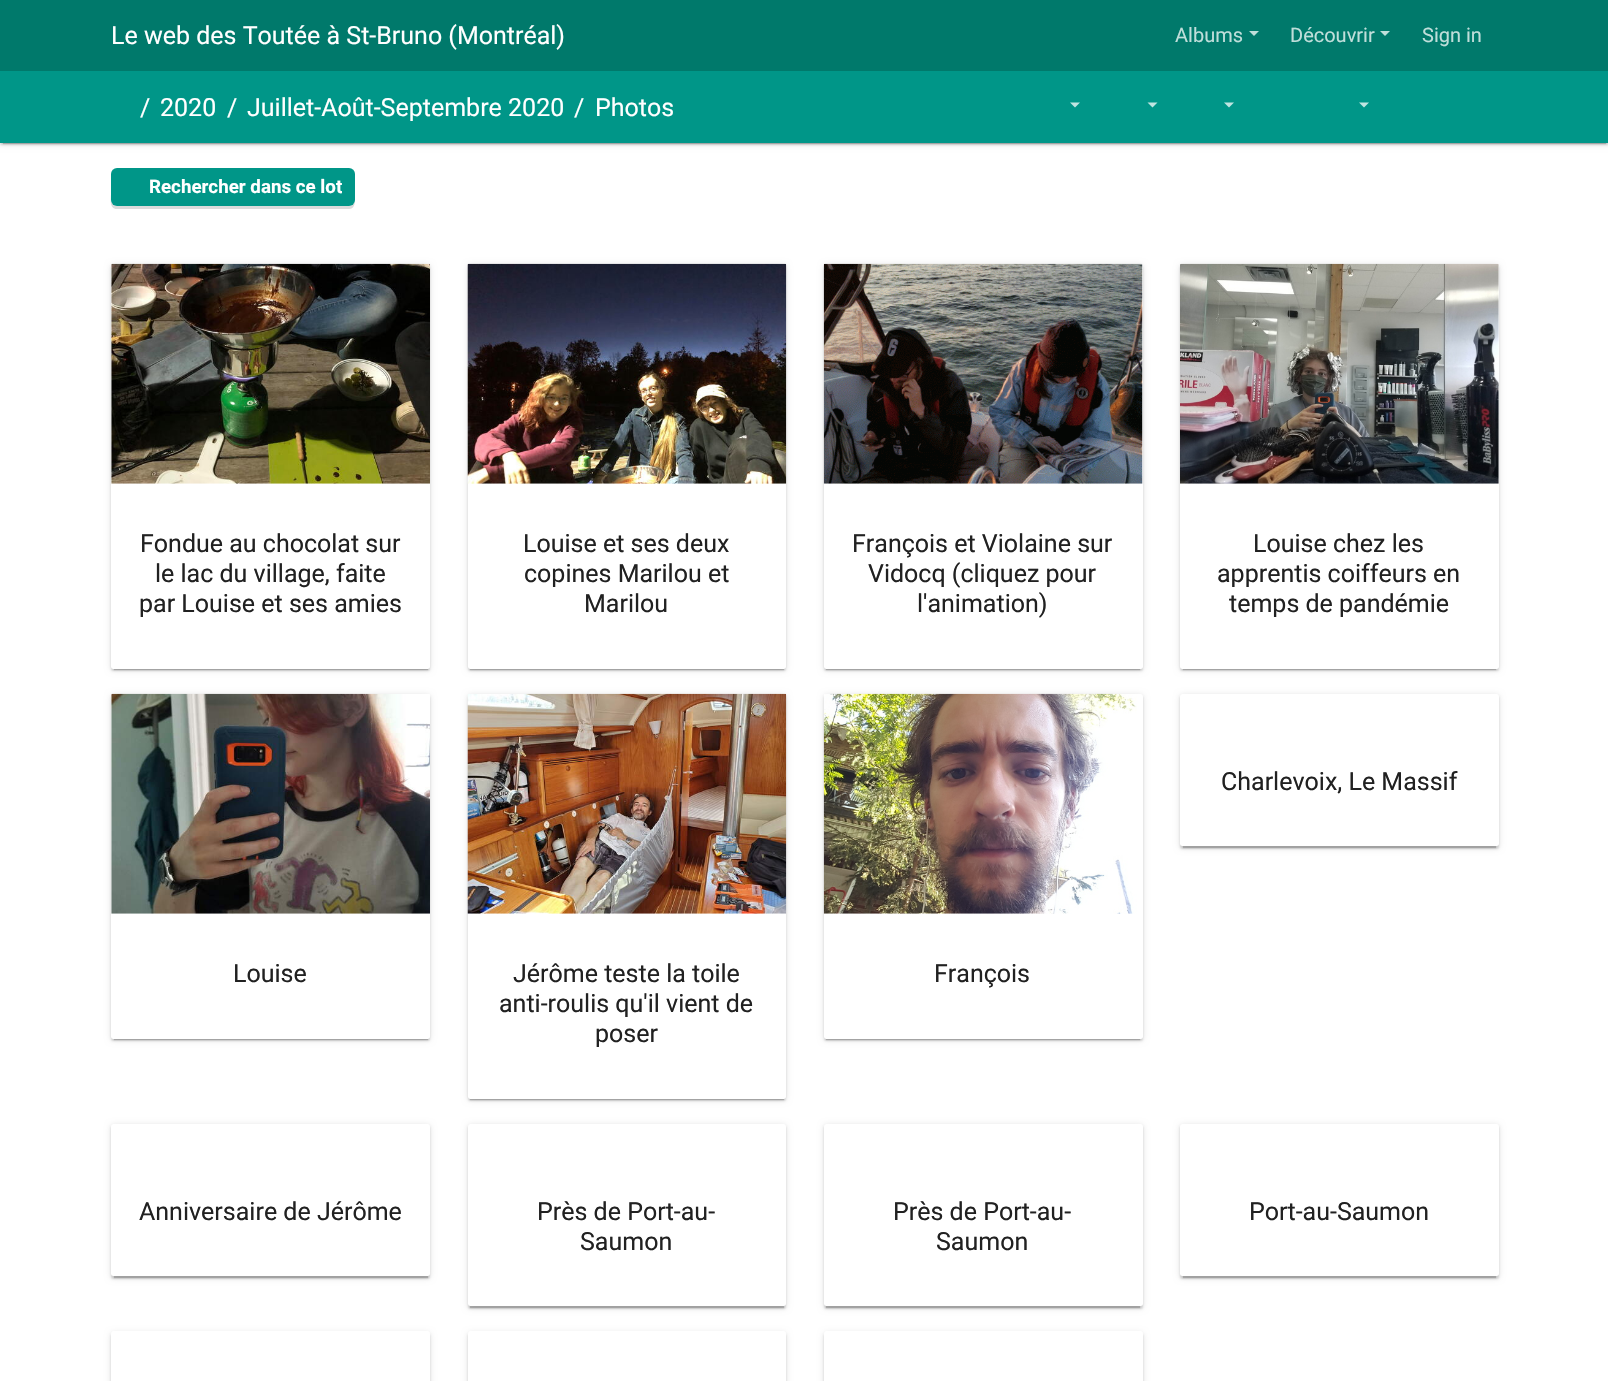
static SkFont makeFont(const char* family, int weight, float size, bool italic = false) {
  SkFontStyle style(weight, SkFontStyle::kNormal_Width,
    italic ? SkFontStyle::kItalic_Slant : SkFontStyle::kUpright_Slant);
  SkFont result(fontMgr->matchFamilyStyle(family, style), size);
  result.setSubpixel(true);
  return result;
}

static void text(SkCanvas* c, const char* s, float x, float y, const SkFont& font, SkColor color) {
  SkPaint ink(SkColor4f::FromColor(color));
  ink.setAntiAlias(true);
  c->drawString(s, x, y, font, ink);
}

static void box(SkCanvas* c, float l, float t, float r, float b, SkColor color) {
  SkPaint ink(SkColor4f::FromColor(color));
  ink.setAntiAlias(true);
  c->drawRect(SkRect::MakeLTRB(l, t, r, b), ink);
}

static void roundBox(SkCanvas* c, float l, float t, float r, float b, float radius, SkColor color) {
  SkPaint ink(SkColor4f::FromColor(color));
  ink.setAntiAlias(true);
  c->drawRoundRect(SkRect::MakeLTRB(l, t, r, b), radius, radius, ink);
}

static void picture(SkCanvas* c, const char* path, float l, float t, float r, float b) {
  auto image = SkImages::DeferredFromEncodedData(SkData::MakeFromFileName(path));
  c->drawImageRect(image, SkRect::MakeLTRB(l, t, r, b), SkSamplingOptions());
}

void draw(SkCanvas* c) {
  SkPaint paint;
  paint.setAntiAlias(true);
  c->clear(0xffffffff);
  paint.setColor(0x1f000000);
  paint.setMaskFilter(SkMaskFilter::MakeBlur(kNormal_SkBlurStyle, 3));
  c->drawRect(SkRect::MakeLTRB(0, 73, 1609, 144), paint);
  paint.setMaskFilter(nullptr);
  paint.setColor(0x24000000);
  paint.setMaskFilter(SkMaskFilter::MakeBlur(kNormal_SkBlurStyle, 1));
  c->drawRect(SkRect::MakeLTRB(0, 74, 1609, 145), paint);
  paint.setMaskFilter(nullptr);
  box(c, 0, 0, 1608, 71, 0xff00796b);
  SkFont face1 = makeFont("Roboto", 400, 25);
  text(c, "Le web des Toutée à St-Bruno (Montréal)", 111, 44, face1, 0xffffffff);
  SkFont face2 = makeFont("Roboto", 400, 20);
  text(c, "Albums", 1175, 42, face2, 0xffbfdeda);
  paint.setColor(0xffbfdeda);
  c->drawPath(SkPathBuilder().moveTo(1249, 31).lineTo(1259, 31).lineTo(1254, 36).close().detach(), paint);
  text(c, "Découvrir", 1290, 42, face2, 0xffbfdeda);
  c->drawPath(SkPathBuilder().moveTo(1380, 31).lineTo(1390, 31).lineTo(1385, 36).close().detach(), paint);
  text(c, "Sign in", 1422, 42, face2, 0xffbfdeda);
  paint.setColor(0x33000000);
  paint.setMaskFilter(SkMaskFilter::MakeBlur(kNormal_SkBlurStyle, 0.5f));
  c->drawRect(SkRect::MakeLTRB(3, 78, 1606, 144), paint);
  paint.setMaskFilter(nullptr);
  box(c, 0, 71, 1608, 143, 0xff009688);
  text(c, "/", 140, 116, face1, 0xffffffff);
  text(c, "2020", 160, 116, face1, 0xffffffff);
  text(c, "/", 227, 116, face1, 0xffffffff);
  text(c, "Juillet-Août-Septembre 2020", 247, 116, face1, 0xffffffff);
  text(c, "/", 574, 116, face1, 0xffffffff);
  text(c, "Photos", 595, 116, face1, 0xffffffff);
  paint.setColor(0xffbfe5e1);
  c->drawPath(SkPathBuilder().moveTo(1070, 102.5f).lineTo(1080, 102.5f).lineTo(1075, 107.5f).close().detach(), paint);
  c->drawPath(SkPathBuilder().moveTo(1147.5f, 102.5f).lineTo(1157.5f, 102.5f).lineTo(1152.5f, 107.5f).close().detach(), paint);
  c->drawPath(SkPathBuilder().moveTo(1224, 102.5f).lineTo(1234, 102.5f).lineTo(1229, 107.5f).close().detach(), paint);
  c->drawPath(SkPathBuilder().moveTo(1359, 102.5f).lineTo(1369, 102.5f).lineTo(1364, 107.5f).close().detach(), paint);
  paint.setColor(0xffdbdbdb);
  c->drawPath(SkPathBuilder().moveTo(111, 174).lineTo(111, 194).cubicTo(111, 199, 109, 209, 117, 209).lineTo(349, 209).cubicTo(354, 209, 355, 204, 355, 200).cubicTo(355, 203, 352, 206, 349, 206).lineTo(118, 206).cubicTo(114, 206, 111, 203, 111, 200).close().detach(), paint);
  roundBox(c, 111, 168, 355, 206, 6, 0xff009688);
  SkFont face3 = makeFont("Roboto", 700, 18.75f);
  text(c, "Rechercher dans ce lot", 149, 193, face3, 0xffffffff);
  paint.setColor(0x1f000000);
  paint.setMaskFilter(SkMaskFilter::MakeBlur(kNormal_SkBlurStyle, 3));
  c->drawRoundRect(SkRect::MakeLTRB(111, 265, 430, 670), 2.5f, 2.5f, paint);
  paint.setMaskFilter(nullptr);
  paint.setColor(0x33000000);
  paint.setMaskFilter(SkMaskFilter::MakeBlur(kNormal_SkBlurStyle, 0.5f));
  c->drawRect(SkRect::MakeLTRB(114, 270, 428, 670), paint);
  paint.setMaskFilter(nullptr);
  paint.setColor(0x24000000);
  paint.setMaskFilter(SkMaskFilter::MakeBlur(kNormal_SkBlurStyle, 1));
  c->drawRoundRect(SkRect::MakeLTRB(111, 266, 430, 671), 2.5f, 2.5f, paint);
  paint.setMaskFilter(nullptr);
  roundBox(c, 111, 264, 430, 669, 2.5f, 0xffffffff);
  picture(c, "img_01.png", 111, 263, 430, 484);
  text(c, "Fondue au chocolat sur", 140, 552, face1, 0xff212121);
  text(c, "le lac du village, faite", 155, 582, face1, 0xff212121);
  text(c, "par Louise et ses amies", 139, 612, face1, 0xff212121);
  paint.setColor(0x1f000000);
  paint.setMaskFilter(SkMaskFilter::MakeBlur(kNormal_SkBlurStyle, 3));
  c->drawRoundRect(SkRect::MakeLTRB(468, 265, 786, 670), 2.5f, 2.5f, paint);
  paint.setMaskFilter(nullptr);
  paint.setColor(0x33000000);
  paint.setMaskFilter(SkMaskFilter::MakeBlur(kNormal_SkBlurStyle, 0.5f));
  c->drawRect(SkRect::MakeLTRB(470, 270, 784, 670), paint);
  paint.setMaskFilter(nullptr);
  paint.setColor(0x24000000);
  paint.setMaskFilter(SkMaskFilter::MakeBlur(kNormal_SkBlurStyle, 1));
  c->drawRoundRect(SkRect::MakeLTRB(468, 266, 786, 671), 2.5f, 2.5f, paint);
  paint.setMaskFilter(nullptr);
  roundBox(c, 468, 264, 786, 669, 2.5f, 0xffffffff);
  picture(c, "img_02.png", 467, 263, 787, 484);
  text(c, "Louise et ses deux", 523, 552, face1, 0xff212121);
  text(c, "copines Marilou et", 524, 582, face1, 0xff212121);
  text(c, "Marilou", 584, 612, face1, 0xff212121);
  paint.setColor(0x1f000000);
  paint.setMaskFilter(SkMaskFilter::MakeBlur(kNormal_SkBlurStyle, 3));
  c->drawRoundRect(SkRect::MakeLTRB(824, 265, 1143, 670), 2.5f, 2.5f, paint);
  paint.setMaskFilter(nullptr);
  paint.setColor(0x33000000);
  paint.setMaskFilter(SkMaskFilter::MakeBlur(kNormal_SkBlurStyle, 0.5f));
  c->drawRect(SkRect::MakeLTRB(826, 270, 1140, 670), paint);
  paint.setMaskFilter(nullptr);
  paint.setColor(0x24000000);
  paint.setMaskFilter(SkMaskFilter::MakeBlur(kNormal_SkBlurStyle, 1));
  c->drawRoundRect(SkRect::MakeLTRB(824, 266, 1143, 671), 2.5f, 2.5f, paint);
  paint.setMaskFilter(nullptr);
  roundBox(c, 824, 264, 1143, 669, 2.5f, 0xffffffff);
  picture(c, "img_03.png", 823, 263, 1143, 484);
  text(c, "François et Violaine sur", 852, 552, face1, 0xff212121);
  text(c, "Vidocq (cliquez pour", 868, 582, face1, 0xff212121);
  text(c, "l'animation)", 917, 612, face1, 0xff212121);
  paint.setColor(0x1f000000);
  paint.setMaskFilter(SkMaskFilter::MakeBlur(kNormal_SkBlurStyle, 3));
  c->drawRoundRect(SkRect::MakeLTRB(1180, 265, 1499, 670), 2.5f, 2.5f, paint);
  paint.setMaskFilter(nullptr);
  paint.setColor(0x33000000);
  paint.setMaskFilter(SkMaskFilter::MakeBlur(kNormal_SkBlurStyle, 0.5f));
  c->drawRect(SkRect::MakeLTRB(1183, 270, 1496, 670), paint);
  paint.setMaskFilter(nullptr);
  paint.setColor(0x24000000);
  paint.setMaskFilter(SkMaskFilter::MakeBlur(kNormal_SkBlurStyle, 1));
  c->drawRoundRect(SkRect::MakeLTRB(1180, 266, 1499, 671), 2.5f, 2.5f, paint);
  paint.setMaskFilter(nullptr);
  roundBox(c, 1180, 264, 1499, 669, 2.5f, 0xffffffff);
  picture(c, "img_04.png", 1180, 263, 1499, 484);
  text(c, "Louise chez les", 1253, 552, face1, 0xff212121);
  text(c, "apprentis coiffeurs en", 1217, 582, face1, 0xff212121);
  text(c, "temps de pandémie", 1229, 612, face1, 0xff212121);
  paint.setColor(0x1f000000);
  paint.setMaskFilter(SkMaskFilter::MakeBlur(kNormal_SkBlurStyle, 3));
  c->drawRoundRect(SkRect::MakeLTRB(1180, 695, 1499, 848), 2.5f, 2.5f, paint);
  paint.setMaskFilter(nullptr);
  paint.setColor(0x33000000);
  paint.setMaskFilter(SkMaskFilter::MakeBlur(kNormal_SkBlurStyle, 0.5f));
  c->drawRect(SkRect::MakeLTRB(1183, 700, 1496, 848), paint);
  paint.setMaskFilter(nullptr);
  paint.setColor(0x24000000);
  paint.setMaskFilter(SkMaskFilter::MakeBlur(kNormal_SkBlurStyle, 1));
  c->drawRoundRect(SkRect::MakeLTRB(1180, 696, 1499, 849), 2.5f, 2.5f, paint);
  paint.setMaskFilter(nullptr);
  roundBox(c, 1180, 694, 1499, 846, 2.5f, 0xffffffff);
  text(c, "Charlevoix, Le Massif", 1221, 790, face1, 0xff212121);
  paint.setColor(0x1f000000);
  paint.setMaskFilter(SkMaskFilter::MakeBlur(kNormal_SkBlurStyle, 3));
  c->drawRoundRect(SkRect::MakeLTRB(111, 695, 430, 1040), 2.5f, 2.5f, paint);
  paint.setMaskFilter(nullptr);
  paint.setColor(0x33000000);
  paint.setMaskFilter(SkMaskFilter::MakeBlur(kNormal_SkBlurStyle, 0.5f));
  c->drawRect(SkRect::MakeLTRB(114, 700, 428, 1040), paint);
  paint.setMaskFilter(nullptr);
  paint.setColor(0x24000000);
  paint.setMaskFilter(SkMaskFilter::MakeBlur(kNormal_SkBlurStyle, 1));
  c->drawRoundRect(SkRect::MakeLTRB(111, 696, 430, 1041), 2.5f, 2.5f, paint);
  paint.setMaskFilter(nullptr);
  roundBox(c, 111, 694, 430, 1039, 2.5f, 0xffffffff);
  picture(c, "img_05.png", 111, 693, 430, 914);
  text(c, "Louise", 233, 982, face1, 0xff212121);
  paint.setColor(0x1f000000);
  paint.setMaskFilter(SkMaskFilter::MakeBlur(kNormal_SkBlurStyle, 3));
  c->drawRoundRect(SkRect::MakeLTRB(468, 695, 786, 1100), 2.5f, 2.5f, paint);
  paint.setMaskFilter(nullptr);
  paint.setColor(0x33000000);
  paint.setMaskFilter(SkMaskFilter::MakeBlur(kNormal_SkBlurStyle, 0.5f));
  c->drawRect(SkRect::MakeLTRB(470, 700, 784, 1100), paint);
  paint.setMaskFilter(nullptr);
  paint.setColor(0x24000000);
  paint.setMaskFilter(SkMaskFilter::MakeBlur(kNormal_SkBlurStyle, 1));
  c->drawRoundRect(SkRect::MakeLTRB(468, 696, 786, 1101), 2.5f, 2.5f, paint);
  paint.setMaskFilter(nullptr);
  roundBox(c, 468, 694, 786, 1099, 2.5f, 0xffffffff);
  picture(c, "img_06.png", 467, 693, 787, 914);
  text(c, "Jérôme teste la toile", 513, 982, face1, 0xff212121);
  text(c, "anti-roulis qu'il vient de", 499, 1012, face1, 0xff212121);
  text(c, "poser", 595, 1042, face1, 0xff212121);
  paint.setColor(0x1f000000);
  paint.setMaskFilter(SkMaskFilter::MakeBlur(kNormal_SkBlurStyle, 3));
  c->drawRoundRect(SkRect::MakeLTRB(824, 695, 1143, 1040), 2.5f, 2.5f, paint);
  paint.setMaskFilter(nullptr);
  paint.setColor(0x33000000);
  paint.setMaskFilter(SkMaskFilter::MakeBlur(kNormal_SkBlurStyle, 0.5f));
  c->drawRect(SkRect::MakeLTRB(826, 700, 1140, 1040), paint);
  paint.setMaskFilter(nullptr);
  paint.setColor(0x24000000);
  paint.setMaskFilter(SkMaskFilter::MakeBlur(kNormal_SkBlurStyle, 1));
  c->drawRoundRect(SkRect::MakeLTRB(824, 696, 1143, 1041), 2.5f, 2.5f, paint);
  paint.setMaskFilter(nullptr);
  roundBox(c, 824, 694, 1143, 1039, 2.5f, 0xffffffff);
  picture(c, "img_07.png", 823, 693, 1137, 914);
  text(c, "François", 934, 982, face1, 0xff212121);
  paint.setColor(0x1f000000);
  paint.setMaskFilter(SkMaskFilter::MakeBlur(kNormal_SkBlurStyle, 3));
  c->drawRoundRect(SkRect::MakeLTRB(111, 1125, 430, 1278), 2.5f, 2.5f, paint);
  paint.setMaskFilter(nullptr);
  paint.setColor(0x33000000);
  paint.setMaskFilter(SkMaskFilter::MakeBlur(kNormal_SkBlurStyle, 0.5f));
  c->drawRect(SkRect::MakeLTRB(114, 1130, 428, 1278), paint);
  paint.setMaskFilter(nullptr);
  paint.setColor(0x24000000);
  paint.setMaskFilter(SkMaskFilter::MakeBlur(kNormal_SkBlurStyle, 1));
  c->drawRoundRect(SkRect::MakeLTRB(111, 1126, 430, 1279), 2.5f, 2.5f, paint);
  paint.setMaskFilter(nullptr);
  roundBox(c, 111, 1124, 430, 1276, 2.5f, 0xffffffff);
  text(c, "Anniversaire de Jérôme", 139, 1220, face1, 0xff212121);
  paint.setColor(0x1f000000);
  paint.setMaskFilter(SkMaskFilter::MakeBlur(kNormal_SkBlurStyle, 3));
  c->drawRoundRect(SkRect::MakeLTRB(468, 1125, 786, 1308), 2.5f, 2.5f, paint);
  paint.setMaskFilter(nullptr);
  paint.setColor(0x33000000);
  paint.setMaskFilter(SkMaskFilter::MakeBlur(kNormal_SkBlurStyle, 0.5f));
  c->drawRect(SkRect::MakeLTRB(470, 1130, 784, 1308), paint);
  paint.setMaskFilter(nullptr);
  paint.setColor(0x24000000);
  paint.setMaskFilter(SkMaskFilter::MakeBlur(kNormal_SkBlurStyle, 1));
  c->drawRoundRect(SkRect::MakeLTRB(468, 1126, 786, 1309), 2.5f, 2.5f, paint);
  paint.setMaskFilter(nullptr);
  roundBox(c, 468, 1124, 786, 1306, 2.5f, 0xffffffff);
  text(c, "Près de Port-au-", 537, 1220, face1, 0xff212121);
  text(c, "Saumon", 580, 1250, face1, 0xff212121);
  paint.setColor(0x1f000000);
  paint.setMaskFilter(SkMaskFilter::MakeBlur(kNormal_SkBlurStyle, 3));
  c->drawRoundRect(SkRect::MakeLTRB(824, 1125, 1143, 1308), 2.5f, 2.5f, paint);
  paint.setMaskFilter(nullptr);
  paint.setColor(0x33000000);
  paint.setMaskFilter(SkMaskFilter::MakeBlur(kNormal_SkBlurStyle, 0.5f));
  c->drawRect(SkRect::MakeLTRB(826, 1130, 1140, 1308), paint);
  paint.setMaskFilter(nullptr);
  paint.setColor(0x24000000);
  paint.setMaskFilter(SkMaskFilter::MakeBlur(kNormal_SkBlurStyle, 1));
  c->drawRoundRect(SkRect::MakeLTRB(824, 1126, 1143, 1309), 2.5f, 2.5f, paint);
  paint.setMaskFilter(nullptr);
  roundBox(c, 824, 1124, 1143, 1306, 2.5f, 0xffffffff);
  text(c, "Près de Port-au-", 893, 1220, face1, 0xff212121);
  text(c, "Saumon", 936, 1250, face1, 0xff212121);
  paint.setColor(0x1f000000);
  paint.setMaskFilter(SkMaskFilter::MakeBlur(kNormal_SkBlurStyle, 3));
  c->drawRoundRect(SkRect::MakeLTRB(1180, 1125, 1499, 1278), 2.5f, 2.5f, paint);
  paint.setMaskFilter(nullptr);
  paint.setColor(0x33000000);
  paint.setMaskFilter(SkMaskFilter::MakeBlur(kNormal_SkBlurStyle, 0.5f));
  c->drawRect(SkRect::MakeLTRB(1183, 1130, 1496, 1278), paint);
  paint.setMaskFilter(nullptr);
  paint.setColor(0x24000000);
  paint.setMaskFilter(SkMaskFilter::MakeBlur(kNormal_SkBlurStyle, 1));
  c->drawRoundRect(SkRect::MakeLTRB(1180, 1126, 1499, 1279), 2.5f, 2.5f, paint);
  paint.setMaskFilter(nullptr);
  roundBox(c, 1180, 1124, 1499, 1276, 2.5f, 0xffffffff);
  text(c, "Port-au-Saumon", 1249, 1220, face1, 0xff212121);
  paint.setColor(0x1f000000);
  paint.setMaskFilter(SkMaskFilter::MakeBlur(kNormal_SkBlurStyle, 3));
  c->drawRoundRect(SkRect::MakeLTRB(111, 1333, 430, 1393), 2.5f, 2.5f, paint);
  paint.setMaskFilter(nullptr);
  paint.setColor(0x24000000);
  paint.setMaskFilter(SkMaskFilter::MakeBlur(kNormal_SkBlurStyle, 1));
  c->drawRoundRect(SkRect::MakeLTRB(111, 1334, 430, 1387), 2.5f, 2.5f, paint);
  paint.setMaskFilter(nullptr);
  roundBox(c, 111, 1331, 430, 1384, 2.5f, 0xffffffff);
  paint.setColor(0x1f000000);
  paint.setMaskFilter(SkMaskFilter::MakeBlur(kNormal_SkBlurStyle, 3));
  c->drawRoundRect(SkRect::MakeLTRB(468, 1333, 786, 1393), 2.5f, 2.5f, paint);
  paint.setMaskFilter(nullptr);
  paint.setColor(0x24000000);
  paint.setMaskFilter(SkMaskFilter::MakeBlur(kNormal_SkBlurStyle, 1));
  c->drawRoundRect(SkRect::MakeLTRB(468, 1334, 786, 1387), 2.5f, 2.5f, paint);
  paint.setMaskFilter(nullptr);
  roundBox(c, 468, 1331, 786, 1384, 2.5f, 0xffffffff);
  paint.setColor(0x1f000000);
  paint.setMaskFilter(SkMaskFilter::MakeBlur(kNormal_SkBlurStyle, 3));
  c->drawRoundRect(SkRect::MakeLTRB(824, 1333, 1143, 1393), 2.5f, 2.5f, paint);
  paint.setMaskFilter(nullptr);
  paint.setColor(0x24000000);
  paint.setMaskFilter(SkMaskFilter::MakeBlur(kNormal_SkBlurStyle, 1));
  c->drawRoundRect(SkRect::MakeLTRB(824, 1334, 1143, 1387), 2.5f, 2.5f, paint);
  paint.setMaskFilter(nullptr);
  roundBox(c, 824, 1331, 1143, 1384, 2.5f, 0xffffffff);
}
